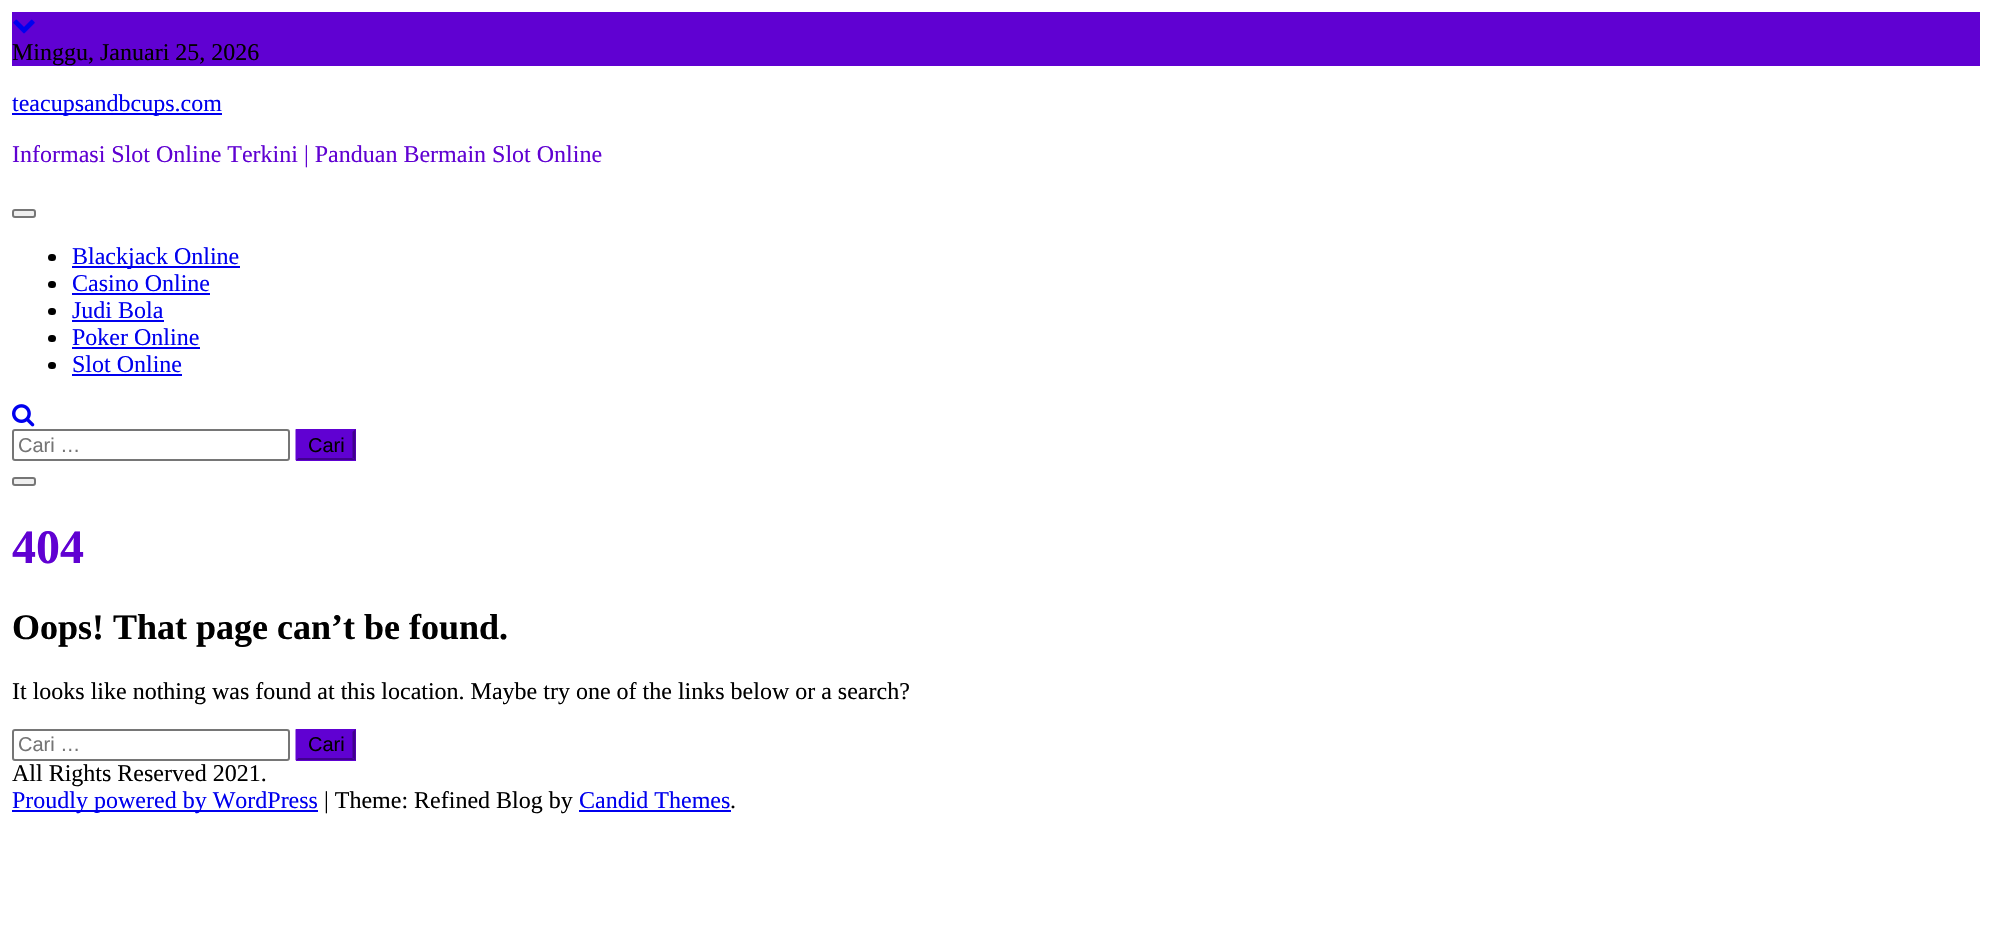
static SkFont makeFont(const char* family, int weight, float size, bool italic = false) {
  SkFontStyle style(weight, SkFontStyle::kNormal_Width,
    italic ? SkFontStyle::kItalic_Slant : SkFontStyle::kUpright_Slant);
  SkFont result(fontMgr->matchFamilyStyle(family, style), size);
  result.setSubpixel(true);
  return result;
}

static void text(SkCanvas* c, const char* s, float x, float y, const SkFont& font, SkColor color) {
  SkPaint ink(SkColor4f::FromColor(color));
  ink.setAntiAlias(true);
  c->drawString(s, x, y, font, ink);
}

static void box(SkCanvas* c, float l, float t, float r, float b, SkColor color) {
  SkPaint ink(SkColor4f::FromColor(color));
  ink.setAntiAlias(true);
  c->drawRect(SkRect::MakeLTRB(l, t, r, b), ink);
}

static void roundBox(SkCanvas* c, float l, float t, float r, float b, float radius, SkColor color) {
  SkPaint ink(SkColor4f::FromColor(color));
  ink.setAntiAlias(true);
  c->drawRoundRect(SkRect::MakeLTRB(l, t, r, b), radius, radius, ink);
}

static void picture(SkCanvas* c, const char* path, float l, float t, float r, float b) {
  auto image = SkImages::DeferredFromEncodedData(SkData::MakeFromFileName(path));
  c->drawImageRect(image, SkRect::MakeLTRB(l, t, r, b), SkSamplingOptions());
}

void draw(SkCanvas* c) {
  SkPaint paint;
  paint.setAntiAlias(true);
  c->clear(0xffffffff);
  box(c, 12, 12, 1980, 66, 0xff6001d2);
  picture(c, "img_01.png", 13, 19, 35, 34);
  SkFont face1 = makeFont("Liberation Serif", 400, 24);
  text(c, "Minggu, Januari 25, 2026", 12, 60, face1, 0xff000000);
  box(c, 12, 113, 222, 115, 0xff0000ee);
  text(c, "teacupsandbcups.com", 12, 111, face1, 0xff0000ee);
  text(c, "Informasi Slot Online Terkini | Panduan Bermain Slot Online", 12, 162, face1, 0xff6001d2);
  paint.setColor(0xffefefef);
  c->drawRoundRect(SkRect::MakeLTRB(13, 210, 35, 217), 2, 2, paint);
  paint.setStyle(SkPaint::kStroke_Style);
  paint.setStrokeWidth(2);
  paint.setColor(0xff767676);
  c->drawRoundRect(SkRect::MakeLTRB(13, 210, 35, 217), 2, 2, paint);
  roundBox(c, 48, 254, 56, 261, 3.5f, 0xff000000);
  box(c, 72, 266, 240, 268, 0xff0000ee);
  text(c, "Blackjack Online", 72, 264, face1, 0xff0000ee);
  roundBox(c, 48, 281, 56, 288, 3.5f, 0xff000000);
  text(c, "Casino Online", 72, 291, face1, 0xff0000ee);
  box(c, 72, 293, 210, 295, 0xff0000ee);
  roundBox(c, 48, 308, 56, 315, 3.5f, 0xff000000);
  text(c, "Judi Bola", 72, 318, face1, 0xff0000ee);
  box(c, 72, 320, 164, 322, 0xff0000ee);
  roundBox(c, 48, 335, 56, 342, 3.5f, 0xff000000);
  text(c, "Poker Online", 72, 345, face1, 0xff0000ee);
  box(c, 72, 347, 200, 349, 0xff0000ee);
  roundBox(c, 48, 362, 56, 369, 3.5f, 0xff000000);
  text(c, "Slot Online", 72, 372, face1, 0xff0000ee);
  box(c, 72, 374, 182, 376, 0xff0000ee);
  picture(c, "img_02.png", 12, 404, 35, 427);
  c->drawRoundRect(SkRect::MakeLTRB(13, 430, 289, 460), 2, 2, paint);
  SkFont face2 = makeFont("Liberation Sans", 400, 20);
  text(c, "Cari …", 18, 452, face2, 0xff757575);
  box(c, 296, 429, 356, 461, 0xff6001d2);
  paint.setStyle(SkPaint::kFill_Style);
  paint.setColor(0xff40018c);
  c->drawPath(SkPathBuilder().moveTo(355.5f, 429).lineTo(355.5f, 460.5f).lineTo(352.5f, 457.5f).lineTo(352.5f, 432).close().detach(), paint);
  c->drawPath(SkPathBuilder().moveTo(356, 460).lineTo(296, 460).lineTo(298, 458).lineTo(352, 458).close().detach(), paint);
  paint.setColor(0xff6001d2);
  c->drawPath(SkPathBuilder().moveTo(295.5f, 460.5f).lineTo(295.5f, 429).lineTo(298.5f, 432).lineTo(298.5f, 457.5f).close().detach(), paint);
  text(c, "Cari", 308, 452, face2, 0xff000000);
  paint.setColor(0xffefefef);
  c->drawRoundRect(SkRect::MakeLTRB(13, 478, 35, 485), 2, 2, paint);
  paint.setStyle(SkPaint::kStroke_Style);
  paint.setColor(0xff767676);
  c->drawRoundRect(SkRect::MakeLTRB(13, 478, 35, 485), 2, 2, paint);
  SkFont face3 = makeFont("Liberation Serif", 700, 48);
  text(c, "404", 12, 563, face3, 0xff6001d2);
  SkFont face4 = makeFont("Liberation Serif", 700, 36);
  text(c, "Oops! That page can’t be found.", 12, 639, face4, 0xff000000);
  text(c, "It looks like nothing was found at this location. Maybe try one of the links below or a search?", 12, 699, face1, 0xff000000);
  c->drawRoundRect(SkRect::MakeLTRB(13, 730, 289, 760), 2, 2, paint);
  text(c, "Cari …", 18, 751, face2, 0xff757575);
  box(c, 296, 729, 356, 761, 0xff6001d2);
  paint.setStyle(SkPaint::kFill_Style);
  paint.setColor(0xff40018c);
  c->drawPath(SkPathBuilder().moveTo(355.5f, 729).lineTo(355.5f, 760.5f).lineTo(352.5f, 757.5f).lineTo(352.5f, 732).close().detach(), paint);
  c->drawPath(SkPathBuilder().moveTo(356, 760).lineTo(296, 760).lineTo(298, 758).lineTo(352, 758).close().detach(), paint);
  paint.setColor(0xff6001d2);
  c->drawPath(SkPathBuilder().moveTo(295.5f, 760.5f).lineTo(295.5f, 729).lineTo(298.5f, 732).lineTo(298.5f, 757.5f).close().detach(), paint);
  text(c, "Cari", 308, 751, face2, 0xff000000);
  text(c, "All Rights Reserved 2021.", 12, 781, face1, 0xff000000);
  box(c, 12, 810, 318, 812, 0xff0000ee);
  text(c, "Proudly powered by WordPress", 12, 808, face1, 0xff0000ee);
  text(c, "| Theme: Refined Blog by", 324, 808, face1, 0xff000000);
  text(c, "Candid Themes", 579, 808, face1, 0xff0000ee);
  box(c, 579, 810, 731, 812, 0xff0000ee);
  text(c, ".", 730, 808, face1, 0xff000000);
}
